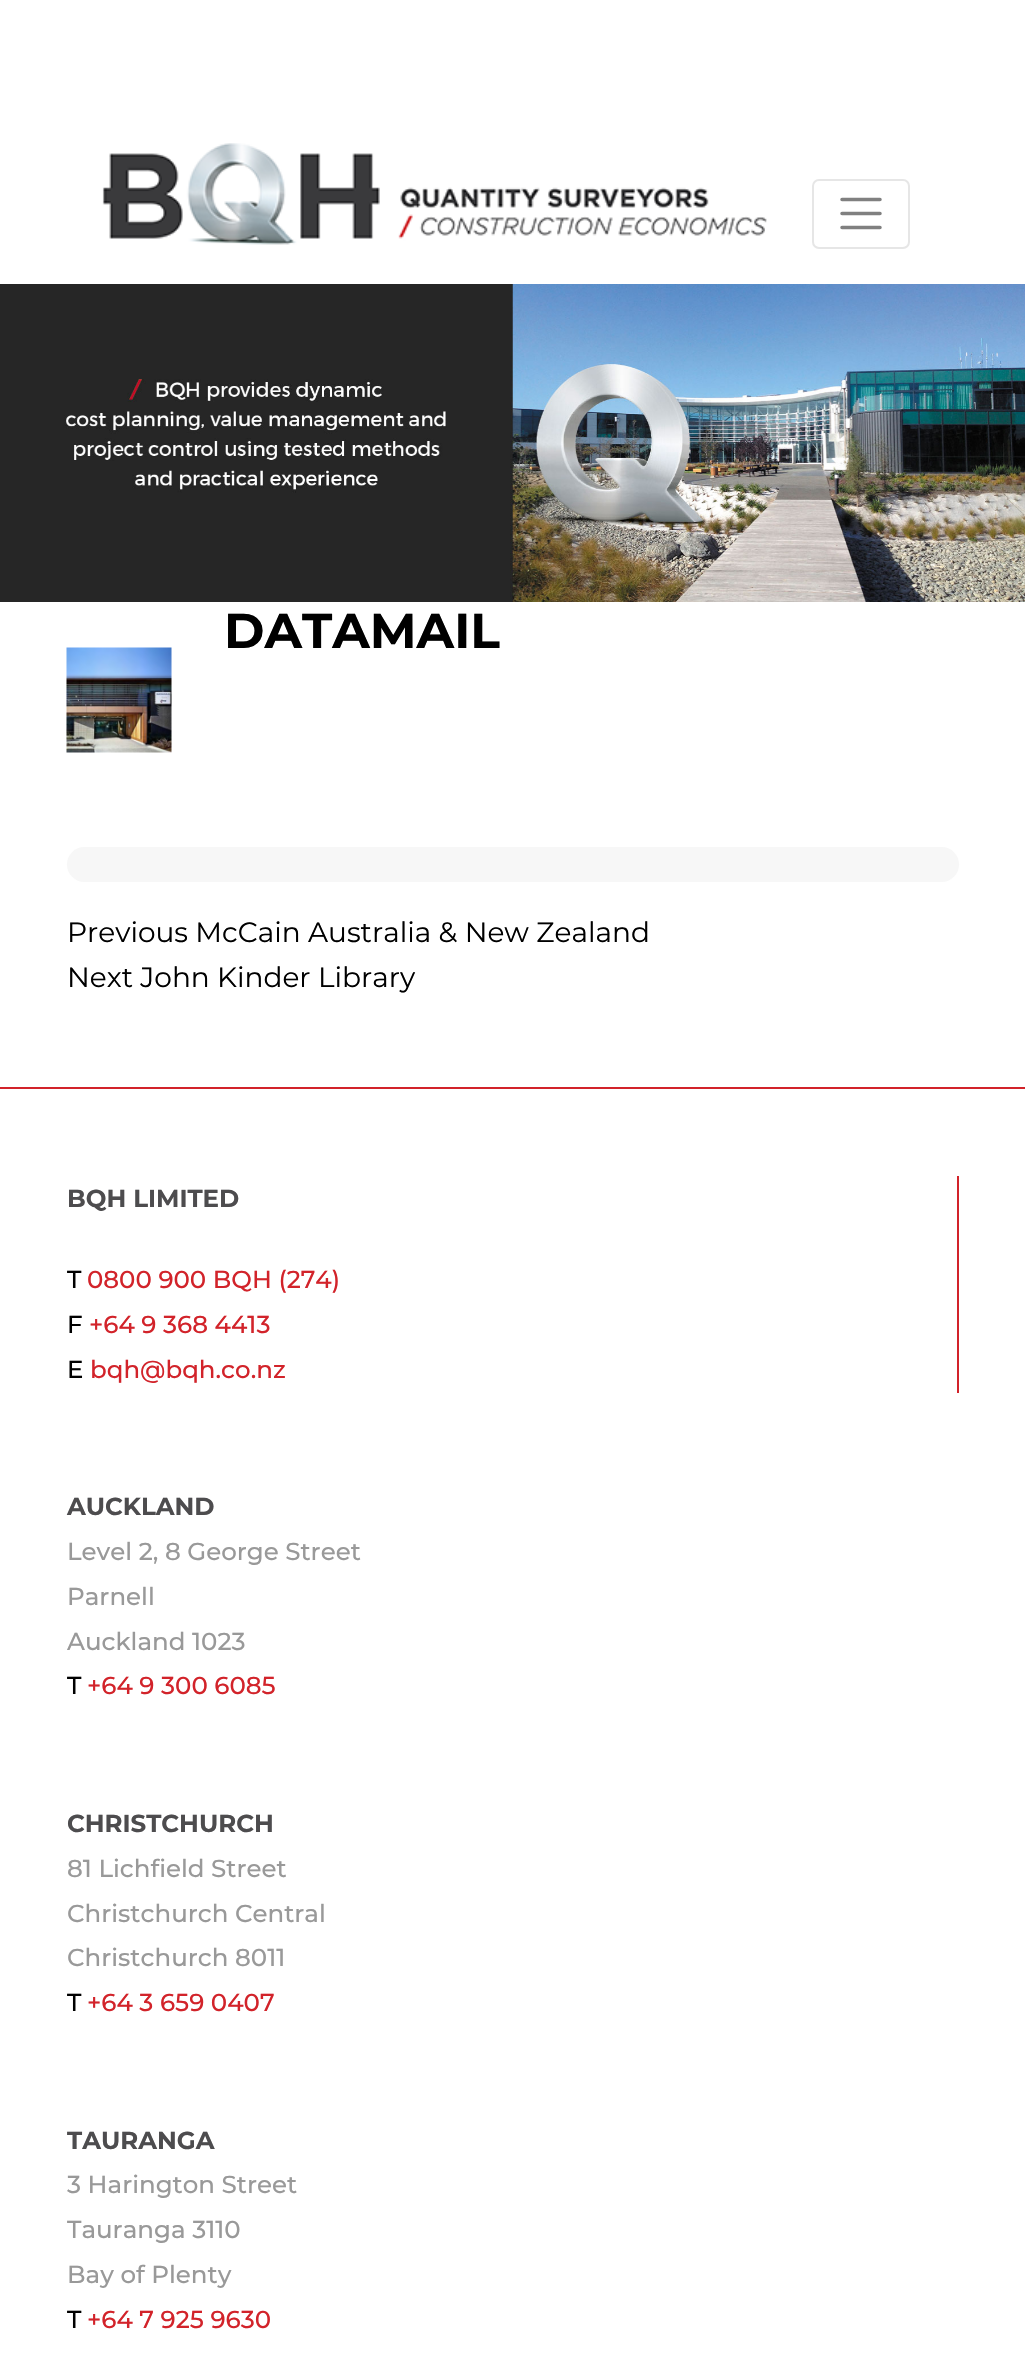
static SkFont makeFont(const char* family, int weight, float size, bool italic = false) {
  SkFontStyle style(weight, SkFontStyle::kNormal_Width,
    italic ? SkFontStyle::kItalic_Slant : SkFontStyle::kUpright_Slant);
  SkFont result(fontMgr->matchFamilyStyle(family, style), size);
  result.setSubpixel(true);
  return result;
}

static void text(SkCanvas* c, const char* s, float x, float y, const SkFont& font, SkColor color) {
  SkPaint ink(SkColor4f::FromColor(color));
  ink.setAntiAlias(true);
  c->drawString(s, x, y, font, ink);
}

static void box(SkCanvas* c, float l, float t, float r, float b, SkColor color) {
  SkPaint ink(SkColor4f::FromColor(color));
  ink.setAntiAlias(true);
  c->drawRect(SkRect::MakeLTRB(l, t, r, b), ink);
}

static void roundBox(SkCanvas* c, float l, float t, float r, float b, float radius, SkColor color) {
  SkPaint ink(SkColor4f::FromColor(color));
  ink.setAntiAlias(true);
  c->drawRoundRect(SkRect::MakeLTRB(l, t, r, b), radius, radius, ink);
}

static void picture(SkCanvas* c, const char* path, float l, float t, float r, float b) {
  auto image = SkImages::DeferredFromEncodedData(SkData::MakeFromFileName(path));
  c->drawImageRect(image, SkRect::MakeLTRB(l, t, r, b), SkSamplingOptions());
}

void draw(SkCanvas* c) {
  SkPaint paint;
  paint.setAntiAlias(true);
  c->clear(0xffffffff);
  picture(c, "img_01.png", 102, 143, 767, 245);
  paint.setStyle(SkPaint::kStroke_Style);
  paint.setStrokeWidth(2);
  paint.setColor(0xffe6e6e6);
  c->drawRoundRect(SkRect::MakeLTRB(813, 180, 909, 248), 6, 6, paint);
  paint.setStrokeWidth(3.5f);
  paint.setStrokeCap(SkPaint::kRound_Cap);
  paint.setColor(0xff808080);
  c->drawPath(SkPathBuilder().moveTo(842, 199.5f).lineTo(880, 199.5f).moveTo(842, 213.5f).lineTo(880, 213.5f).moveTo(842, 227.5f).lineTo(880, 227.5f).detach(), paint);
  picture(c, "img_02.png", 0, 284, 1025, 602);
  SkFont face1 = makeFont("Montserrat", 700, 49);
  text(c, "DATAMAIL", 224, 648, face1, 0xff000000);
  picture(c, "img_03.png", 66, 647, 172, 753);
  roundBox(c, 67, 847, 959, 882, 17.5f, 0xfff7f7f7);
  SkFont face2 = makeFont("Montserrat", 400, 28);
  text(c, "Previous McCain Australia & New Zealand", 67, 942, face2, 0xff000000);
  text(c, "Next John Kinder Library", 67, 987, face2, 0xff000000);
  box(c, 0, 1087, 1025, 1089, 0xffd2232a);
  box(c, 957, 1176, 959, 1393, 0xffd2232a);
  SkFont face3 = makeFont("Montserrat", 700, 24.5f);
  text(c, "BQH LIMITED", 67, 1207, face3, 0xff4d4c4e);
  SkFont face4 = makeFont("Montserrat", 500, 24.5f);
  text(c, "T", 67, 1288, face4, 0xff000000);
  text(c, "0800 900 BQH (274)", 87, 1288, face4, 0xffd2232a);
  text(c, "F", 67, 1333, face4, 0xff000000);
  text(c, "+64 9 368 4413", 89, 1333, face4, 0xffd2232a);
  text(c, "E", 67, 1378, face4, 0xff000000);
  text(c, "bqh@bqh.co.nz", 90, 1378, face4, 0xffd2232a);
  text(c, "AUCKLAND", 67, 1515, face3, 0xff4d4c4e);
  text(c, "Level 2, 8 George Street", 67, 1560, face4, 0xff999999);
  text(c, "Parnell", 67, 1605, face4, 0xff999999);
  text(c, "Auckland 1023", 67, 1650, face4, 0xff999999);
  text(c, "T", 67, 1694, face4, 0xff000000);
  text(c, "+64 9 300 6085", 87, 1694, face4, 0xffd2232a);
  text(c, "CHRISTCHURCH", 67, 1832, face3, 0xff4d4c4e);
  text(c, "81 Lichfield Street", 67, 1877, face4, 0xff999999);
  text(c, "Christchurch Central", 67, 1922, face4, 0xff999999);
  text(c, "Christchurch 8011", 67, 1966, face4, 0xff999999);
  text(c, "T", 67, 2011, face4, 0xff000000);
  text(c, "+64 3 659 0407", 87, 2011, face4, 0xffd2232a);
  text(c, "TAURANGA", 67, 2149, face3, 0xff4d4c4e);
  text(c, "3 Harington Street", 67, 2193, face4, 0xff999999);
  text(c, "Tauranga 3110", 67, 2238, face4, 0xff999999);
  text(c, "Bay of Plenty", 67, 2283, face4, 0xff999999);
  text(c, "T", 67, 2328, face4, 0xff000000);
  text(c, "+64 7 925 9630", 87, 2328, face4, 0xffd2232a);
}
